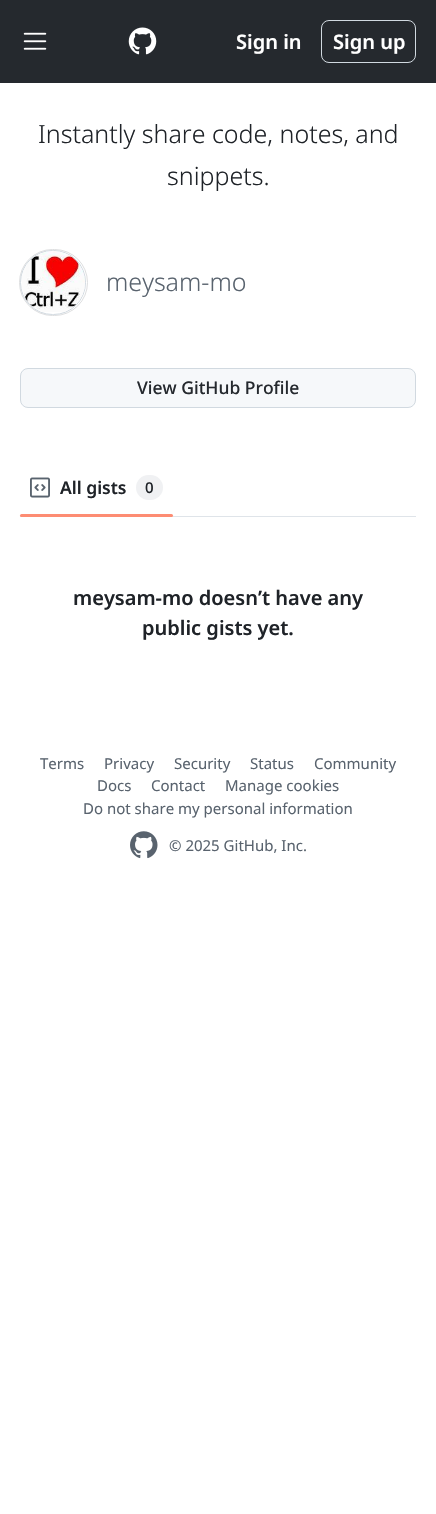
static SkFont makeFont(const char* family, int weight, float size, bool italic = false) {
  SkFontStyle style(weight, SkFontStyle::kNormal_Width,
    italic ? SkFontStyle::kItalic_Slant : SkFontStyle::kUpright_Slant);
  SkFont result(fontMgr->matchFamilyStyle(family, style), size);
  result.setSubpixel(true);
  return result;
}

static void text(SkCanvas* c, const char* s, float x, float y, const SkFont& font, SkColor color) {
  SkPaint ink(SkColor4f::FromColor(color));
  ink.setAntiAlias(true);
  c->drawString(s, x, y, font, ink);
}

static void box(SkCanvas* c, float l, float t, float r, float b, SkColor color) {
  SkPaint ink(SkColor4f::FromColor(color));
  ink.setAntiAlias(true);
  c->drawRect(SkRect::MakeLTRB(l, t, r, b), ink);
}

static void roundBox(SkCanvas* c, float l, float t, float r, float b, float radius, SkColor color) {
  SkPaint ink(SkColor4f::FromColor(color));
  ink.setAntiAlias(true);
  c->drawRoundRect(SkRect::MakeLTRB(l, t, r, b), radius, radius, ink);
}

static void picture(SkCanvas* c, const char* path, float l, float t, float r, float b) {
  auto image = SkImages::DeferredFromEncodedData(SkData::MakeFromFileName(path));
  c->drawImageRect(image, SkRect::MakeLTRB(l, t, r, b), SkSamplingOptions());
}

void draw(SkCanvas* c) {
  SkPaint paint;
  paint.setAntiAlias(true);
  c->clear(0xffffffff);
  box(c, 0, 0, 436, 83, 0xff25292e);
  picture(c, "img_01.png", 23, 32, 47, 50);
  picture(c, "img_02.png", 128, 27, 157, 55);
  SkFont face1 = makeFont("Noto Sans", 600, 20);
  text(c, "Sign in", 236, 49, face1, 0xffffffff);
  paint.setStyle(SkPaint::kStroke_Style);
  paint.setStrokeWidth(1);
  paint.setColor(0xffd1d9e0);
  c->drawRoundRect(SkRect::MakeLTRB(321.5f, 20.5f, 415.5f, 62.5f), 7.5f, 7.5f, paint);
  text(c, "Sign up", 333, 49, face1, 0xffffffff);
  SkFont face2 = makeFont("Noto Sans", 300, 25);
  text(c, "Instantly share code, notes, and", 38, 143, face2, 0xff1f2328);
  text(c, "snippets.", 167, 185, face2, 0xff1f2328);
  paint.setColor(0xffdddedf);
  c->drawRoundRect(SkRect::MakeLTRB(19.5f, 249.5f, 87.5f, 315.5f), 33, 33, paint);
  paint.setStyle(SkPaint::kFill_Style);
  paint.setColor(0xffffffff);
  c->drawRoundRect(SkRect::MakeLTRB(20.5f, 250.5f, 85.5f, 314.5f), 32, 32, paint);
  paint.setStyle(SkPaint::kStroke_Style);
  paint.setColor(0xffd1d9e0);
  c->drawRoundRect(SkRect::MakeLTRB(20.5f, 250.5f, 85.5f, 314.5f), 32, 32, paint);
  picture(c, "img_03.png", 22, 251, 85, 312);
  text(c, "meysam-mo", 106, 291, face2, 0xff59636e);
  paint.setStyle(SkPaint::kFill_Style);
  paint.setColor(0xfff6f8fa);
  c->drawRoundRect(SkRect::MakeLTRB(20.5f, 368.5f, 415.5f, 407.5f), 7.5f, 7.5f, paint);
  paint.setStyle(SkPaint::kStroke_Style);
  paint.setColor(0xffd1d9e0);
  c->drawRoundRect(SkRect::MakeLTRB(20.5f, 368.5f, 415.5f, 407.5f), 7.5f, 7.5f, paint);
  SkFont face3 = makeFont("Noto Sans", 500, 17.5f);
  text(c, "View GitHub Profile", 137, 394, face3, 0xff25292e);
  box(c, 20, 516, 416, 517, 0xffdfe4e9);
  picture(c, "img_04.png", 30, 477, 50, 498);
  SkFont face4 = makeFont("Noto Sans", 600, 17.5f);
  text(c, "All gists", 60, 494, face4, 0xff1f2328);
  roundBox(c, 136, 475, 163, 500, 12.5f, 0xfff0f1f3);
  SkFont face5 = makeFont("Noto Sans", 500, 15);
  text(c, "0", 145, 493, face5, 0xff1f2328);
  roundBox(c, 20, 514, 173, 517, 1.5f, 0xfffd8c73);
  text(c, "meysam-mo doesn’t have any", 73, 605, face1, 0xff1f2328);
  text(c, "public gists yet.", 142, 635, face1, 0xff1f2328);
  SkFont face6 = makeFont("Noto Sans", 400, 15);
  text(c, "Terms", 40, 769, face6, 0xff59636e);
  text(c, "Privacy", 104, 769, face6, 0xff59636e);
  text(c, "Security", 174, 769, face6, 0xff59636e);
  text(c, "Status", 250, 769, face6, 0xff59636e);
  text(c, "Community", 314, 769, face6, 0xff59636e);
  text(c, "Docs", 97, 791, face6, 0xff59636e);
  text(c, "Contact", 151, 791, face6, 0xff59636e);
  text(c, "Manage cookies", 225, 791, face6, 0xff59636e);
  text(c, "Do not share my personal information", 83, 814, face6, 0xff59636e);
  picture(c, "img_05.png", 130, 831, 158, 859);
  text(c, "© 2025 GitHub, Inc.", 169, 851, face6, 0xff59636e);
}
